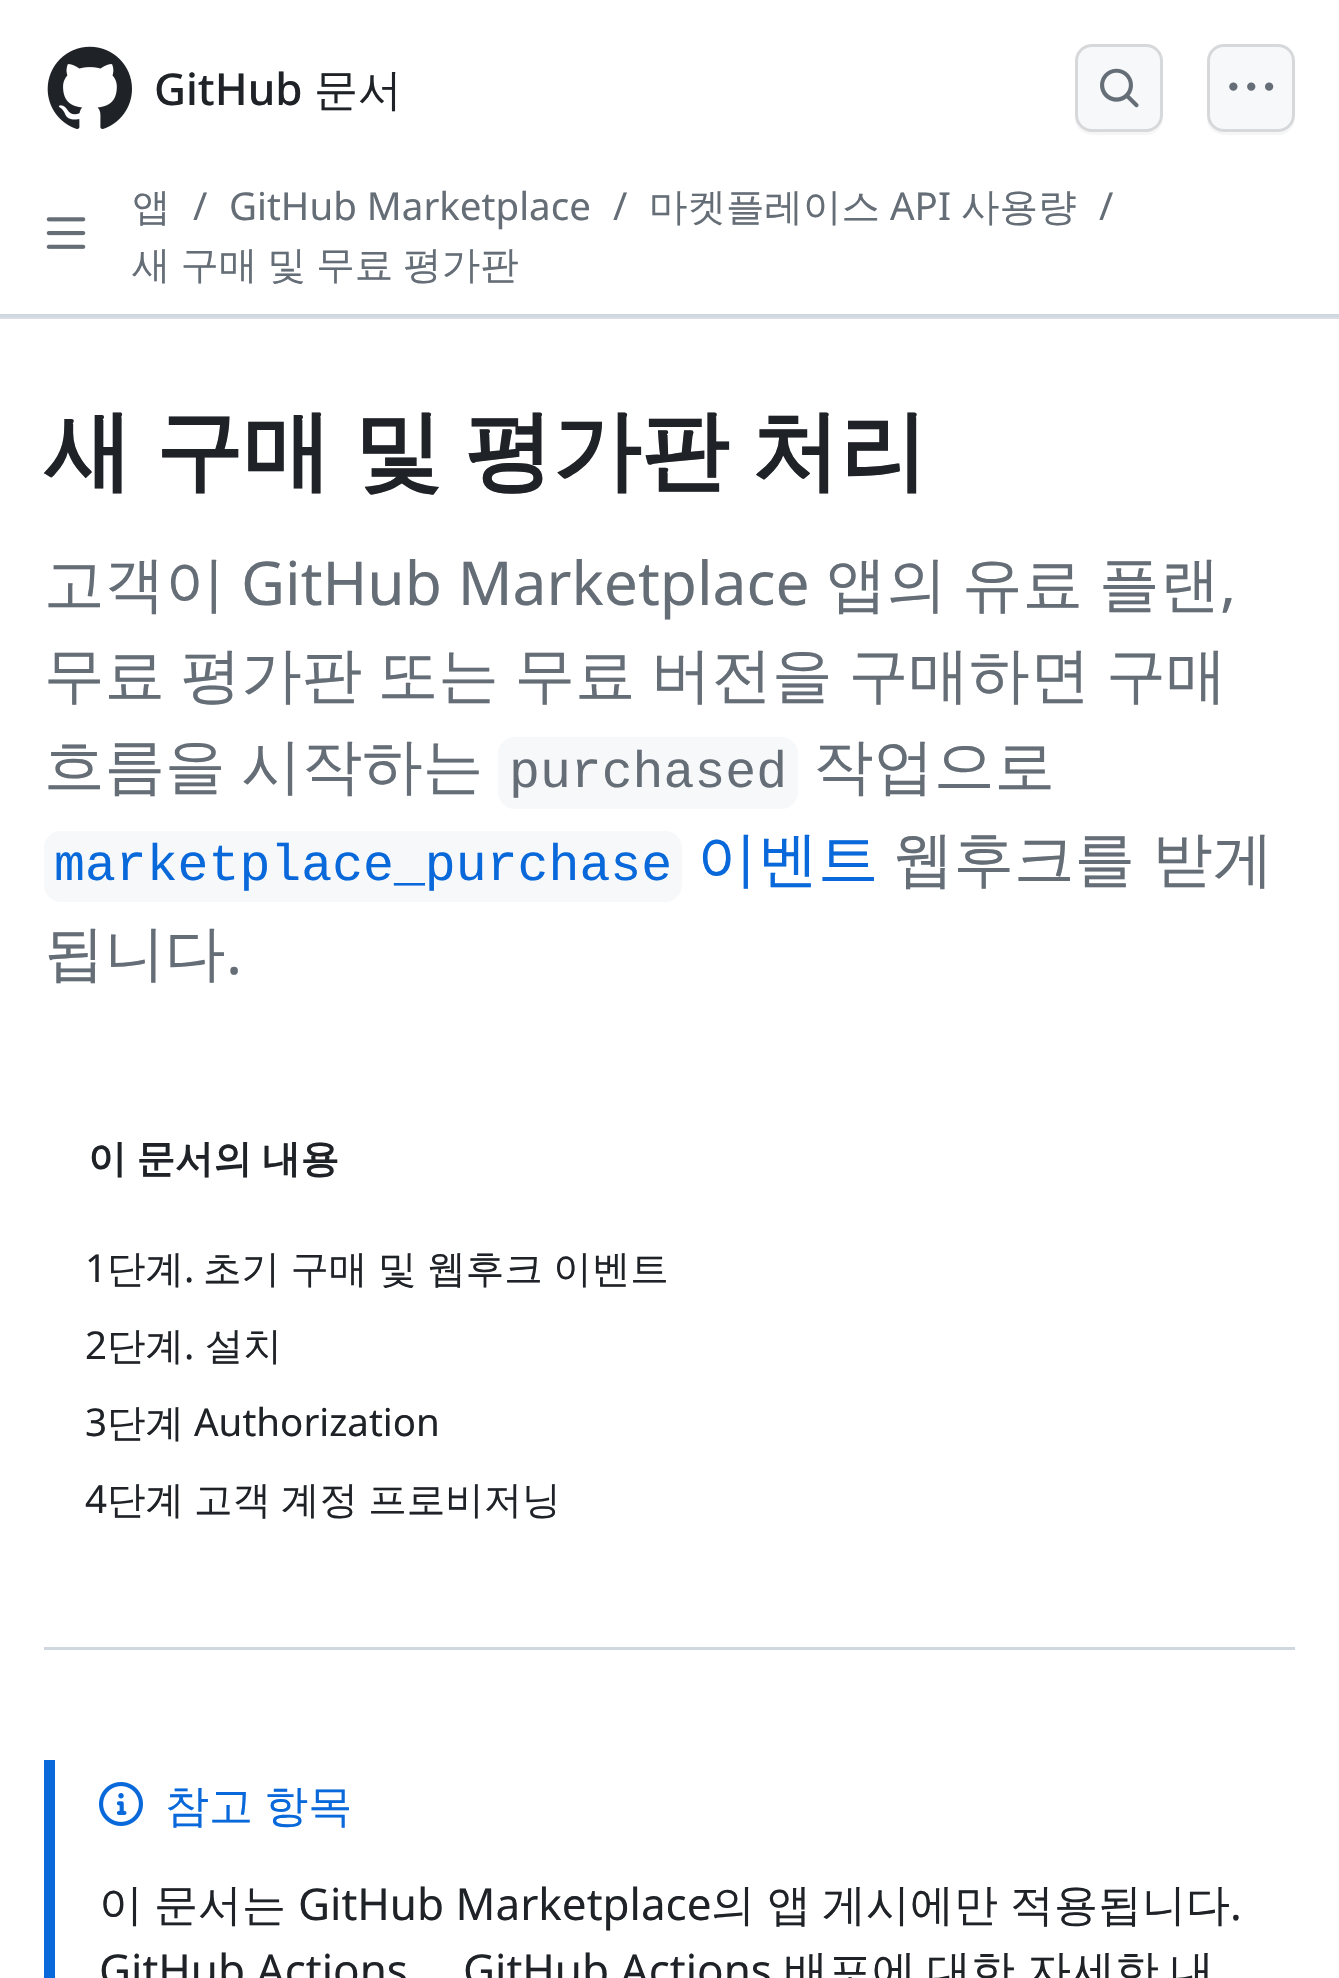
static SkFont makeFont(const char* family, int weight, float size, bool italic = false) {
  SkFontStyle style(weight, SkFontStyle::kNormal_Width,
    italic ? SkFontStyle::kItalic_Slant : SkFontStyle::kUpright_Slant);
  SkFont result(fontMgr->matchFamilyStyle(family, style), size);
  result.setSubpixel(true);
  return result;
}

static void text(SkCanvas* c, const char* s, float x, float y, const SkFont& font, SkColor color) {
  SkPaint ink(SkColor4f::FromColor(color));
  ink.setAntiAlias(true);
  c->drawString(s, x, y, font, ink);
}

static void spacedText(SkCanvas* c, const char* s, float x, float y, const SkFont& font, const SkPaint& ink, float letter, float word) {
  std::vector<SkGlyphID> glyphs(font.countText(s, strlen(s), SkTextEncoding::kUTF8));
  std::vector<float> xs(glyphs.size());
  font.textToGlyphs(s, strlen(s), SkTextEncoding::kUTF8, glyphs);
  font.getXPos(glyphs, xs, x);
  float extra = 0;
  for (size_t i = 0; i < glyphs.size(); i++) {
    xs[i] += extra;
    extra += letter + word * (glyphs[i] == font.unicharToGlyph(' '));
  }
  c->drawTextBlob(SkTextBlob::MakeFromPosHGlyphs(glyphs, xs, y, font), 0, 0, ink);
}

static void box(SkCanvas* c, float l, float t, float r, float b, SkColor color) {
  SkPaint ink(SkColor4f::FromColor(color));
  ink.setAntiAlias(true);
  c->drawRect(SkRect::MakeLTRB(l, t, r, b), ink);
}

static void roundBox(SkCanvas* c, float l, float t, float r, float b, float radius, SkColor color) {
  SkPaint ink(SkColor4f::FromColor(color));
  ink.setAntiAlias(true);
  c->drawRoundRect(SkRect::MakeLTRB(l, t, r, b), radius, radius, ink);
}

static void picture(SkCanvas* c, const char* path, float l, float t, float r, float b) {
  auto image = SkImages::DeferredFromEncodedData(SkData::MakeFromFileName(path));
  c->drawImageRect(image, SkRect::MakeLTRB(l, t, r, b), SkSamplingOptions());
}

void draw(SkCanvas* c) {
  SkPaint paint;
  paint.setAntiAlias(true);
  c->clear(0xffffffff);
  box(c, 0, 317, 1339, 319, 0xffd8dee4);
  box(c, 0, 314, 1339, 317, 0xffd0d7de);
  picture(c, "img_01.png", 47, 46, 132, 129);
  SkFont face1 = makeFont("Noto Sans", 500, 44);
  text(c, "GitHub", 154, 105, face1, 0xff1f2328);
  SkFont face2 = makeFont("WenQuanYi Zen Hei", 500, 44);
  text(c, "문서", 314, 105, face2, 0xff1f2328);
  paint.setColor(0xfff6f6f6);
  c->drawPath(SkPathBuilder().moveTo(1075, 61).lineTo(1075, 121).cubicTo(1079, 138, 1097, 135, 1110, 135).lineTo(1149, 135).cubicTo(1157, 133, 1163, 126, 1163, 118).cubicTo(1162, 126, 1155, 132, 1147, 132).lineTo(1092, 132).cubicTo(1083, 132, 1075, 125, 1075, 116).close().detach(), paint);
  roundBox(c, 1075, 44, 1163, 132, 17, 0xfff6f8fa);
  paint.setStyle(SkPaint::kStroke_Style);
  paint.setStrokeWidth(3);
  paint.setColor(0x261f2328);
  c->drawRoundRect(SkRect::MakeLTRB(1076.5f, 45.5f, 1161.5f, 130.5f), 15.5f, 15.5f, paint);
  picture(c, "img_02.png", 1100, 68, 1139, 108);
  paint.setStyle(SkPaint::kFill_Style);
  paint.setColor(0xfff6f6f6);
  c->drawPath(SkPathBuilder().moveTo(1207, 61).lineTo(1207, 121).cubicTo(1211, 138, 1229, 135, 1242, 135).lineTo(1281, 135).cubicTo(1289, 133, 1295, 126, 1295, 118).cubicTo(1294, 126, 1287, 132, 1279, 132).lineTo(1224, 132).cubicTo(1215, 132, 1207, 125, 1207, 116).close().detach(), paint);
  roundBox(c, 1207, 44, 1295, 132, 17, 0xfff6f8fa);
  paint.setStyle(SkPaint::kStroke_Style);
  paint.setColor(0x261f2328);
  c->drawRoundRect(SkRect::MakeLTRB(1208.5f, 45.5f, 1293.5f, 130.5f), 15.5f, 15.5f, paint);
  picture(c, "img_03.png", 1229, 82, 1274, 91);
  picture(c, "img_04.png", 46, 217, 86, 249);
  SkFont face3 = makeFont("WenQuanYi Zen Hei", 500, 38.5f);
  text(c, "앱", 132, 220, face3, 0xff656d76);
  SkFont face4 = makeFont("Noto Sans", 400, 38.5f);
  text(c, "/", 193, 220, face4, 0xff656d76);
  text(c, "GitHub Marketplace", 229, 220, face4, 0xff656d76);
  text(c, "/", 613, 220, face4, 0xff656d76);
  text(c, "마켓플레이스", 649, 220, face3, 0xff656d76);
  text(c, "API", 890, 220, face4, 0xff656d76);
  text(c, "사용량", 961, 220, face3, 0xff656d76);
  text(c, "/", 1099, 220, face4, 0xff656d76);
  paint.setStyle(SkPaint::kFill_Style);
  paint.setColor(0xff656d76);
  spacedText(c, "새 구매 및 무료 평가판", 132, 278, face3, paint, 0, -1.5f);
  SkFont face5 = makeFont("WenQuanYi Zen Hei", 700, 88);
  paint.setColor(0xff1f2328);
  spacedText(c, "새 구매 및 평가판 처리", 44, 481, face5, paint, 0, -3.5f);
  SkFont face6 = makeFont("WenQuanYi Zen Hei", 500, 60.5f);
  text(c, "고객이", 44, 605, face6, 0xff656d76);
  SkFont face7 = makeFont("Noto Sans", 400, 60.5f);
  text(c, "GitHub Marketplace", 241, 605, face7, 0xff656d76);
  text(c, "앱의", 826, 605, face6, 0xff656d76);
  text(c, "유료", 962, 605, face6, 0xff656d76);
  text(c, "플랜", 1099, 605, face6, 0xff656d76);
  text(c, ",", 1220, 605, face7, 0xff656d76);
  paint.setColor(0xff656d76);
  spacedText(c, "무료 평가판 또는 무료 버전을 구매하면 구매", 44, 696, face6, paint, 0, -2.5f);
  spacedText(c, "흐름을 시작하는", 44, 787, face6, paint, 0, -2.5f);
  roundBox(c, 498, 737, 798, 809, 17, 0xfff6f8fa);
  SkFont face8 = makeFont("Liberation Mono", 400, 51.5f);
  text(c, "purchased", 509, 787, face8, 0xff656d76);
  text(c, "작업으로", 813, 787, face6, 0xff656d76);
  roundBox(c, 44, 831, 682, 902, 17, 0xfff6f8fa);
  text(c, "marketplace_purchase", 54, 880, face8, 0xff0969da);
  text(c, "이벤트", 697, 880, face6, 0xff0969da);
  spacedText(c, "웹후크를 받게", 893, 880, face6, paint, 0, -1);
  text(c, "됩니다", 44, 974, face6, 0xff656d76);
  text(c, ".", 226, 974, face7, 0xff656d76);
  box(c, 44, 1647, 1295, 1650, 0xffd0d7de);
  SkFont face9 = makeFont("WenQuanYi Zen Hei", 700, 38.5f);
  paint.setColor(0xff1f2328);
  spacedText(c, "이 문서의 내용", 88, 1172, face9, paint, 0, -1.5f);
  text(c, "1", 85, 1282, face4, 0xff1f2328);
  text(c, "단계", 107, 1282, face3, 0xff1f2328);
  text(c, ".", 184, 1282, face4, 0xff1f2328);
  spacedText(c, "초기 구매 및 웹후크 이벤트", 203, 1282, face3, paint, 0, -1);
  text(c, "2", 85, 1359, face4, 0xff1f2328);
  text(c, "단계", 107, 1359, face3, 0xff1f2328);
  text(c, ".", 184, 1359, face4, 0xff1f2328);
  text(c, "설치", 205, 1359, face3, 0xff1f2328);
  text(c, "3", 85, 1436, face4, 0xff1f2328);
  text(c, "단계", 107, 1436, face3, 0xff1f2328);
  text(c, "Authorization", 194, 1436, face4, 0xff1f2328);
  text(c, "4", 85, 1513, face4, 0xff1f2328);
  spacedText(c, "단계 고객 계정 프로비저닝", 107, 1513, face3, paint, 0, -1.5f);
  box(c, 44, 1760, 55, 1978, 0xff0969da);
  picture(c, "img_05.png", 99, 1782, 143, 1826);
  paint.setColor(0xff0969da);
  spacedText(c, "참고 항목", 165, 1821, face2, paint, 0, -2);
  text(c, "이", 99, 1920, face2, 0xff1f2328);
  text(c, "문서는", 154, 1920, face2, 0xff1f2328);
  SkFont face10 = makeFont("Noto Sans", 400, 44);
  text(c, "GitHub Marketplace", 298, 1920, face10, 0xff1f2328);
  text(c, "의", 711, 1920, face2, 0xff1f2328);
  text(c, "앱", 767, 1920, face2, 0xff1f2328);
  text(c, "게시에만", 822, 1920, face2, 0xff1f2328);
  text(c, "적용됩니다", 1010, 1920, face2, 0xff1f2328);
  text(c, ".", 1230, 1920, face10, 0xff1f2328);
  text(c, "GitHub Actions", 99, 1986, face10, 0xff1f2328);
  text(c, "GitHub Actions", 463, 1986, face10, 0xff1f2328);
  text(c, "배포에", 784, 1986, face2, 0xff1f2328);
  text(c, "대한", 927, 1986, face2, 0xff1f2328);
  text(c, "자세한", 1027, 1986, face2, 0xff1f2328);
  text(c, "내", 1170, 1986, face2, 0xff1f2328);
}
